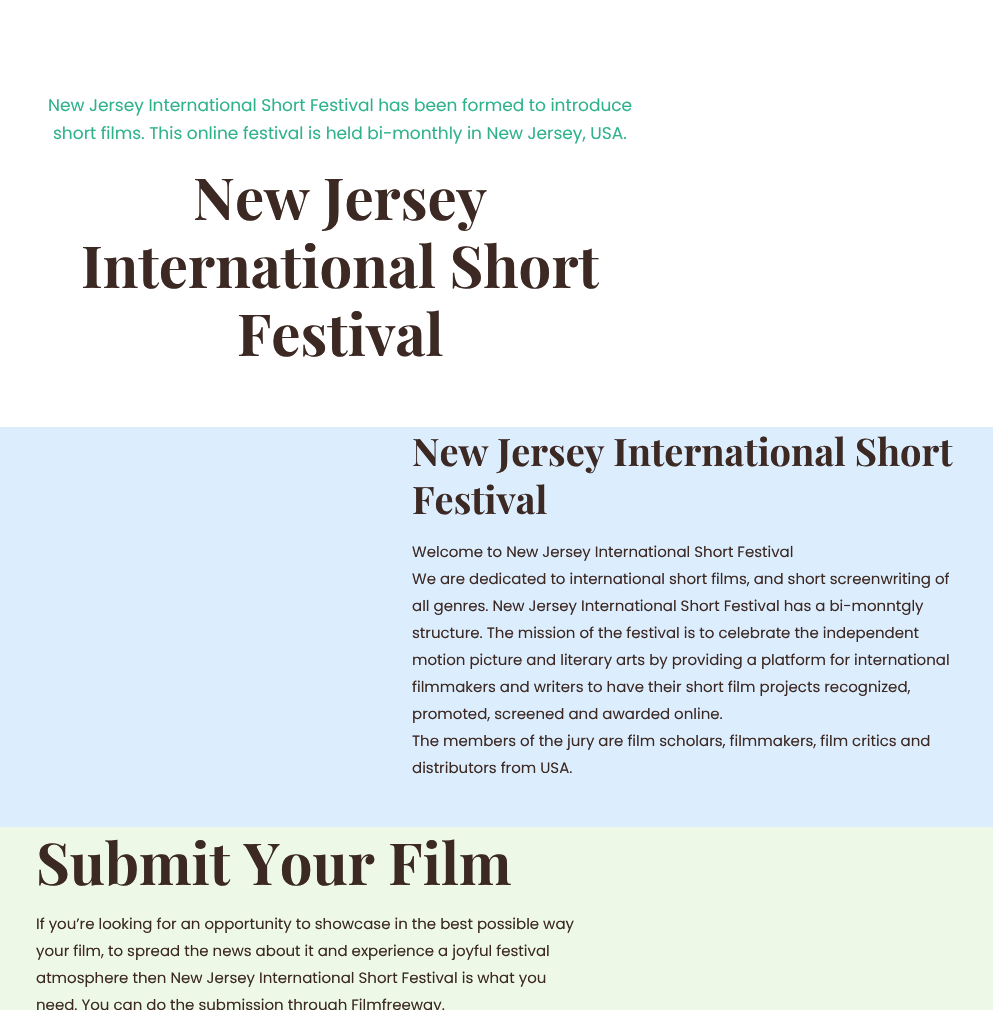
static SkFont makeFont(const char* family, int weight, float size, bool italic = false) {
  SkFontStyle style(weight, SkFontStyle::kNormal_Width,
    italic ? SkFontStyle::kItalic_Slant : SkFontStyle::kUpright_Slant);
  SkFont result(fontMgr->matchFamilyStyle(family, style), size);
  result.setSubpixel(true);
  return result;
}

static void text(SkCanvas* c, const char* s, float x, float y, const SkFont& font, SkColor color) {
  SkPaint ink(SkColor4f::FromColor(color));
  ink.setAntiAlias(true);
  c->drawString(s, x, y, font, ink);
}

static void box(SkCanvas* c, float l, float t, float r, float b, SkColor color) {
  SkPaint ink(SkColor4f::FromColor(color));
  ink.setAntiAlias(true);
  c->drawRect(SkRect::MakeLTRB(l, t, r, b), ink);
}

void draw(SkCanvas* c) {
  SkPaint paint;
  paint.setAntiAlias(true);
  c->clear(0xffffffff);
  SkFont face1 = makeFont("Poppins", 400, 17);
  text(c, "New Jersey International Short Festival has been formed to introduce", 48, 111, face1, 0xff2fb28c);
  text(c, "short films. This online festival is held bi-monthly in New Jersey, USA.", 53, 139, face1, 0xff2fb28c);
  SkFont face2 = makeFont("Playfair Display", 700, 58);
  text(c, "New Jersey", 193, 220, face2, 0xff3c2923);
  text(c, "International Short", 81, 288, face2, 0xff3c2923);
  text(c, "Festival", 237, 356, face2, 0xff3c2923);
  box(c, 0, 427, 993, 827, 0xffdcedfd);
  SkFont face3 = makeFont("Playfair Display", 700, 38);
  text(c, "New Jersey International Short", 412, 466, face3, 0xff3c2923);
  text(c, "Festival", 412, 514, face3, 0xff3c2923);
  SkFont face4 = makeFont("Poppins", 400, 15);
  text(c, "Welcome to New Jersey International Short Festival", 412, 557, face4, 0xff3c2923);
  text(c, "We are dedicated to international short films, and short screenwriting of", 412, 584, face4, 0xff3c2923);
  text(c, "all genres. New Jersey International Short Festival has a bi-monntgly", 412, 611, face4, 0xff3c2923);
  text(c, "structure. The mission of the festival is to celebrate the independent", 412, 638, face4, 0xff3c2923);
  text(c, "motion picture and literary arts by providing a platform for international", 412, 665, face4, 0xff3c2923);
  text(c, "filmmakers and writers to have their short film projects recognized,", 412, 692, face4, 0xff3c2923);
  text(c, "promoted, screened and awarded online.", 412, 719, face4, 0xff3c2923);
  text(c, "The members of the jury are film scholars, filmmakers, film critics and", 412, 746, face4, 0xff3c2923);
  text(c, "distributors from USA.", 412, 773, face4, 0xff3c2923);
  box(c, 0, 827, 993, 1010, 0xffedf9e6);
  text(c, "Submit Your Film", 36, 885, face2, 0xff3c2923);
  text(c, "If you’re looking for an opportunity to showcase in the best possible way", 36, 929, face4, 0xff3c2923);
  text(c, "your film, to spread the news about it and experience a joyful festival", 36, 956, face4, 0xff3c2923);
  text(c, "atmosphere then New Jersey International Short Festival is what you", 36, 983, face4, 0xff3c2923);
  text(c, "need. You can do the submission through Filmfreeway.", 36, 1010, face4, 0xff3c2923);
}
